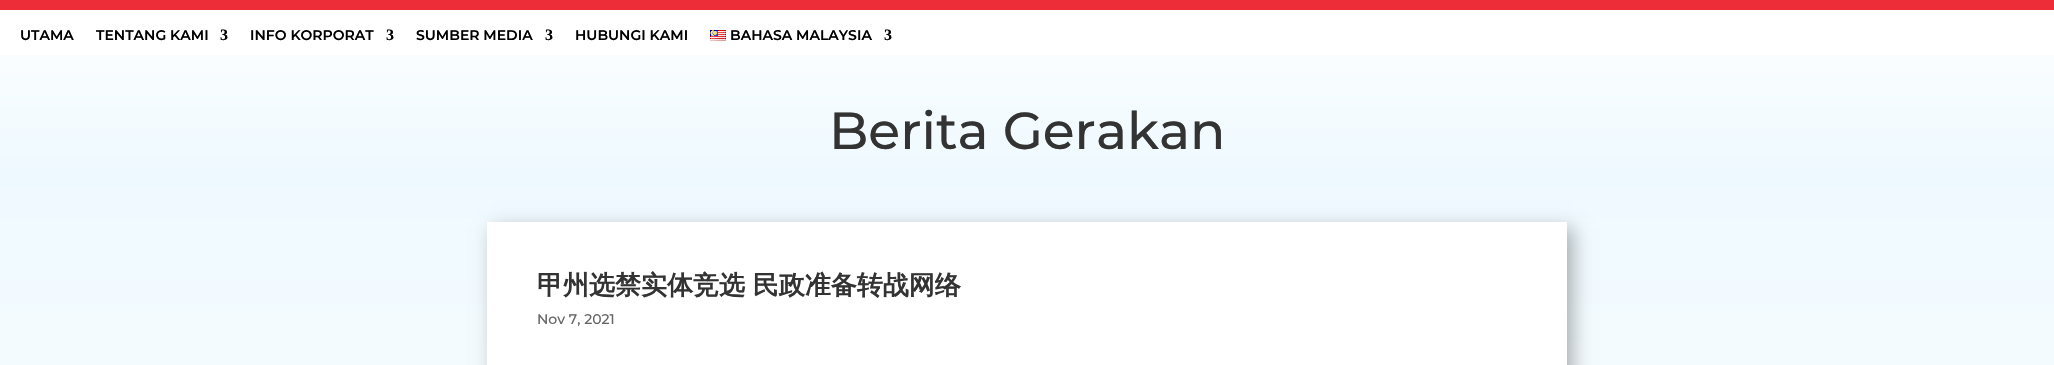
static SkFont makeFont(const char* family, int weight, float size, bool italic = false) {
  SkFontStyle style(weight, SkFontStyle::kNormal_Width,
    italic ? SkFontStyle::kItalic_Slant : SkFontStyle::kUpright_Slant);
  SkFont result(fontMgr->matchFamilyStyle(family, style), size);
  result.setSubpixel(true);
  return result;
}

static void text(SkCanvas* c, const char* s, float x, float y, const SkFont& font, SkColor color) {
  SkPaint ink(SkColor4f::FromColor(color));
  ink.setAntiAlias(true);
  c->drawString(s, x, y, font, ink);
}

static void box(SkCanvas* c, float l, float t, float r, float b, SkColor color) {
  SkPaint ink(SkColor4f::FromColor(color));
  ink.setAntiAlias(true);
  c->drawRect(SkRect::MakeLTRB(l, t, r, b), ink);
}

static void picture(SkCanvas* c, const char* path, float l, float t, float r, float b) {
  auto image = SkImages::DeferredFromEncodedData(SkData::MakeFromFileName(path));
  c->drawImageRect(image, SkRect::MakeLTRB(l, t, r, b), SkSamplingOptions());
}

void draw(SkCanvas* c) {
  SkPaint paint;
  paint.setAntiAlias(true);
  c->clear(0xffffffff);
  box(c, 0, 0, 2054, 10, 0xffed2d37);
  SkFont face1 = makeFont("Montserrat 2", 100, 14);
  text(c, "UTAMA", 20, 40, face1, 0xff000000);
  text(c, "TENTANG KAMI", 96, 40, face1, 0xff000000);
  SkFont face2 = makeFont("Liberation Serif", 700, 16);
  text(c, "3", 220, 40, face2, 0xff000000);
  text(c, "INFO KORPORAT", 250, 40, face1, 0xff000000);
  text(c, "3", 386, 40, face2, 0xff000000);
  text(c, "SUMBER MEDIA", 416, 40, face1, 0xff000000);
  text(c, "3", 545, 40, face2, 0xff000000);
  text(c, "HUBUNGI KAMI", 575, 40, face1, 0xff000000);
  picture(c, "img_01.png", 710, 30, 726, 41);
  text(c, "BAHASA MALAYSIA", 730, 40, face1, 0xff000000);
  text(c, "3", 884, 40, face2, 0xff000000);
  {
    const SkColor colors[] = {0xffffffff, 0xffeef9ff};
    const float stops[] = {0, 1};
    const SkPoint ends[] = {{1027, 0}, {1027, 172}};
    paint.setShader(SkGradientShader::MakeLinear(ends, colors, stops, 2, SkTileMode::kClamp));
    paint.setAlpha(255);
  }
  c->drawRect(SkRect::MakeLTRB(0, 55, 2054, 172), paint);
  SkFont face3 = makeFont("Montserrat", 100, 52);
  text(c, "Berita Gerakan", 829, 149, face3, 0xff333333);
  {
    const SkColor colors[] = {0xffeef9ff, 0xffffffff};
    const float stops[] = {0, 1};
    const SkPoint ends[] = {{1027, 172}, {1027, 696}};
    paint.setShader(SkGradientShader::MakeLinear(ends, colors, stops, 2, SkTileMode::kClamp));
    paint.setAlpha(255);
  }
  c->drawRect(SkRect::MakeLTRB(0, 172, 2054, 365), paint);
  paint.setShader(nullptr);
  paint.setColor(0x4d000000);
  paint.setMaskFilter(SkMaskFilter::MakeBlur(kNormal_SkBlurStyle, 9));
  c->drawRect(SkRect::MakeLTRB(493, 228, 1573, 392), paint);
  paint.setMaskFilter(nullptr);
  box(c, 487, 222, 1567, 365, 0xffffffff);
  SkFont face4 = makeFont("WenQuanYi Zen Hei", 700, 26);
  text(c, "甲州选禁实体竞选 民政准备转战网络", 537, 294, face4, 0xff333333);
  SkFont face5 = makeFont("Montserrat", 100, 14);
  text(c, "Nov 7, 2021", 537, 324, face5, 0xff666666);
}
